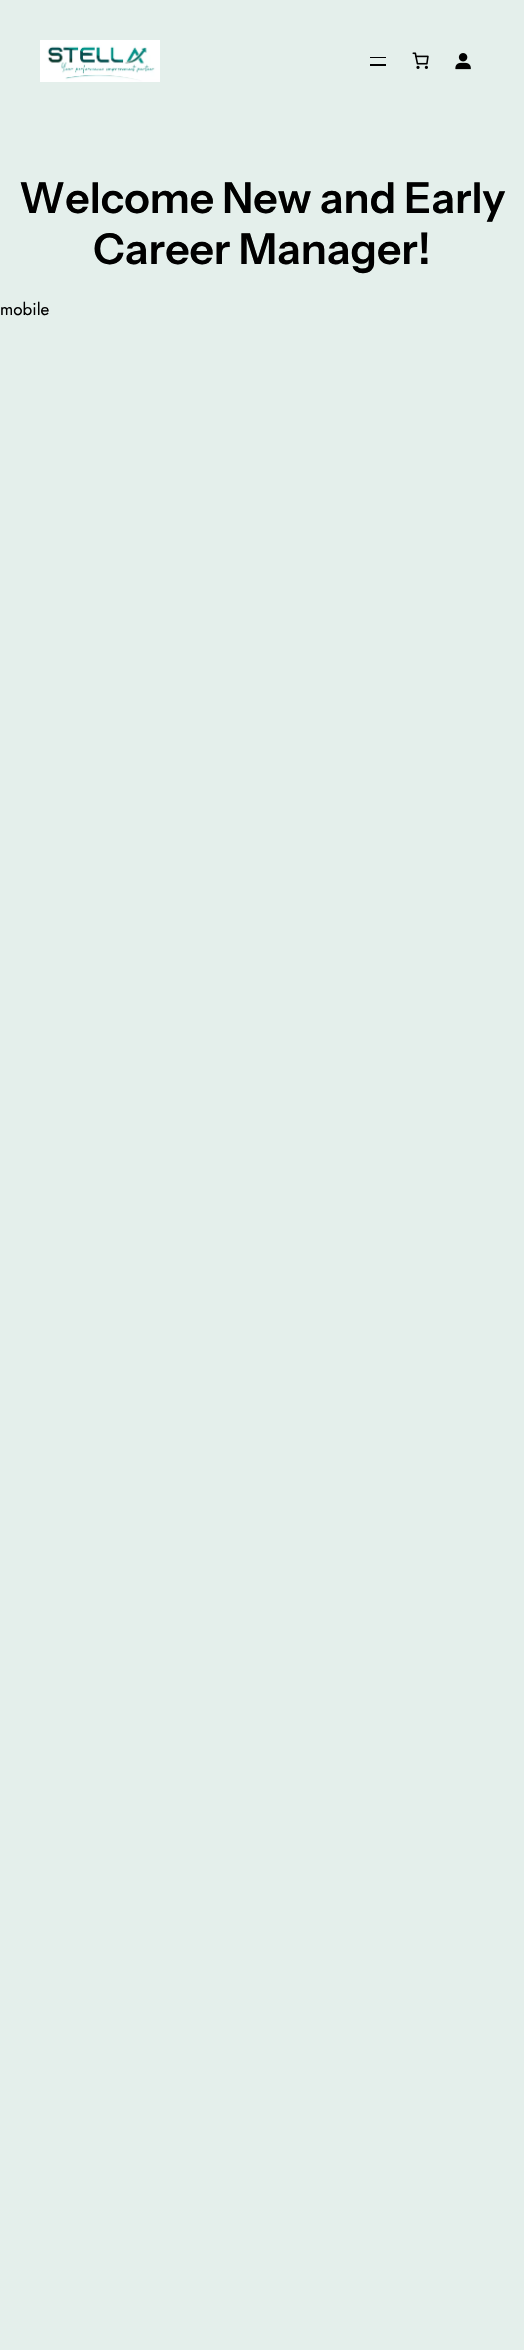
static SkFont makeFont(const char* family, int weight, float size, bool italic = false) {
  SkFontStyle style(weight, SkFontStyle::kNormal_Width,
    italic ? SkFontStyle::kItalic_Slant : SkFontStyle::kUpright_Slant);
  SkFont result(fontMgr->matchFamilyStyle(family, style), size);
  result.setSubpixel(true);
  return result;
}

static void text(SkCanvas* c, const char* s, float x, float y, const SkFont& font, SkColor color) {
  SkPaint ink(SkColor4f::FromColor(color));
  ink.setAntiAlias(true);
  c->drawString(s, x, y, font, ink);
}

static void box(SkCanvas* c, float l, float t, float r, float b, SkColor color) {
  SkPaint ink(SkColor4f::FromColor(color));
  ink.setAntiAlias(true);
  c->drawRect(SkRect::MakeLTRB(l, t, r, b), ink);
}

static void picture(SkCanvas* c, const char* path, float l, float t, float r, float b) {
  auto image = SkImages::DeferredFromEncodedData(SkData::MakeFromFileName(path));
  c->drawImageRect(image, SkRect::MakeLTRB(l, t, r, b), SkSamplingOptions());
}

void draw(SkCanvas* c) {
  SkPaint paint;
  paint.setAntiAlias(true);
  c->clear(0xffe4efeb);
  picture(c, "img_01.png", 40, 40, 160, 82);
  box(c, 370, 57, 386, 58, 0xff000000);
  box(c, 370, 64, 386, 66, 0xff000000);
  picture(c, "img_02.png", 412, 52, 429, 69);
  picture(c, "img_03.png", 455, 53, 471, 70);
  SkFont face1 = makeFont("Instrument Sans", 600, 42.6f);
  text(c, "Welcome New and Early", 19, 213, face1, 0xff000000);
  text(c, "Career Manager!", 93, 264, face1, 0xff000000);
  SkFont face2 = makeFont("Jost", 400, 17);
  text(c, "mobile", 0, 315, face2, 0xff000000);
}
